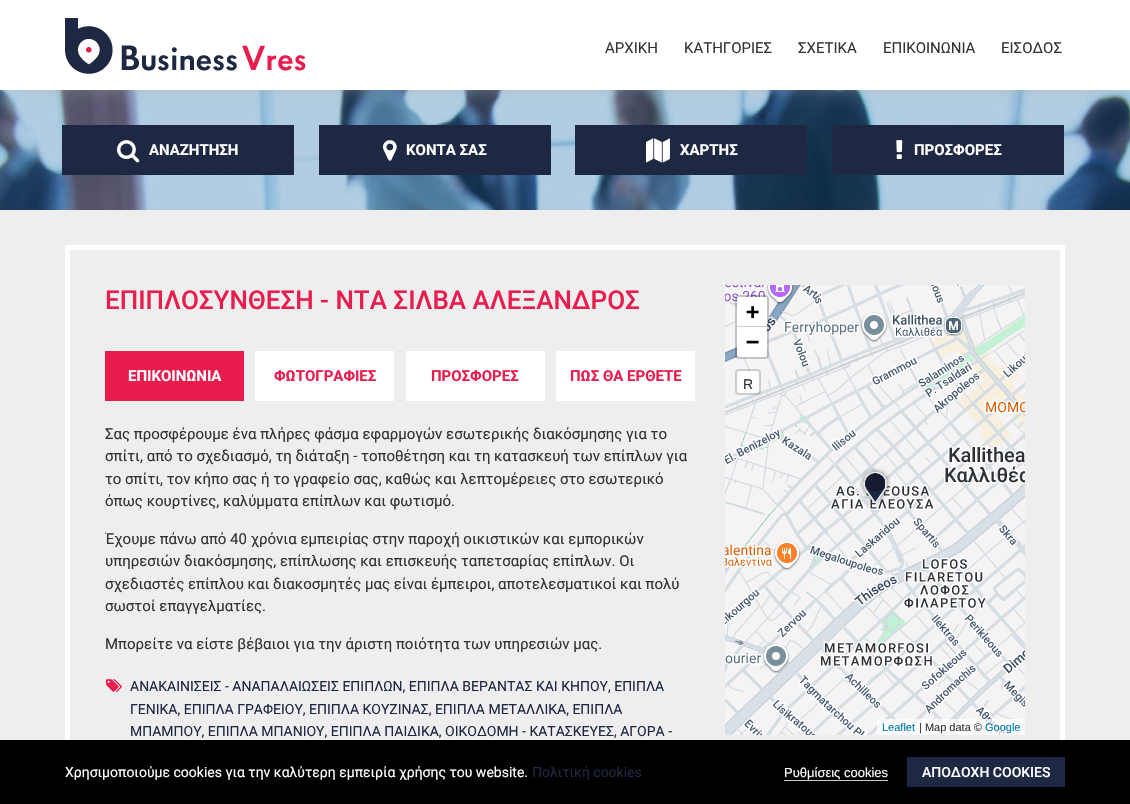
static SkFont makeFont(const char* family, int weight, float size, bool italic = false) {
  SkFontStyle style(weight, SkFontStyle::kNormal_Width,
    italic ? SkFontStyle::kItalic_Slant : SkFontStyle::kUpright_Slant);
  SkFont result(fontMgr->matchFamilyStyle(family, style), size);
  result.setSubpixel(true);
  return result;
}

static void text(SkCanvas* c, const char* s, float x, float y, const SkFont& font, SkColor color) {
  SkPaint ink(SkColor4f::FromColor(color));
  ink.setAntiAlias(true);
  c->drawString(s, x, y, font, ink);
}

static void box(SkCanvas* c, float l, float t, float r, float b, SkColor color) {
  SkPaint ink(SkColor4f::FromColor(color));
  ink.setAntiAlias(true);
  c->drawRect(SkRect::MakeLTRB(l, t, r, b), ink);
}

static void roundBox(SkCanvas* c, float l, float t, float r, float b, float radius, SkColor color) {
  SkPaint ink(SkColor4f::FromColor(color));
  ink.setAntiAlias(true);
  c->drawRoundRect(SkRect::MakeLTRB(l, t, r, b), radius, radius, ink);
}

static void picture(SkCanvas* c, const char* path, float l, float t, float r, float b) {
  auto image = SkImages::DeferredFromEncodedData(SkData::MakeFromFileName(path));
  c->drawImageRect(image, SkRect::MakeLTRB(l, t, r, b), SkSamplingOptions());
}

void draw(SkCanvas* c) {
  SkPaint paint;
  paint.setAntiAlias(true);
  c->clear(0xffeeeeee);
  picture(c, "img_02.png", 0, 90, 1130, 210);
  paint.setColor(0xffaaaaaa);
  paint.setMaskFilter(SkMaskFilter::MakeBlur(kNormal_SkBlurStyle, 12.5f));
  c->drawRect(SkRect::MakeLTRB(15, 20, 1115, 80), paint);
  paint.setMaskFilter(nullptr);
  box(c, 0, 0, 1130, 90, 0xffffffff);
  picture(c, "img_01.png", 65, 18, 306, 74);
  SkFont face1 = makeFont("Roboto", 400, 15);
  text(c, "ΑΡΧΙΚΗ", 605, 53, face1, 0xff333333);
  text(c, "ΚΑΤΗΓΟΡΙΕΣ", 684, 53, face1, 0xff333333);
  text(c, "ΣΧΕΤΙΚΑ", 798, 53, face1, 0xff333333);
  text(c, "ΕΠΙΚΟΙΝΩΝΙΑ", 883, 53, face1, 0xff333333);
  text(c, "ΕΙΣΟΔΟΣ", 1001, 53, face1, 0xff333333);
  box(c, 62, 125, 294, 175, 0xff1e2843);
  picture(c, "img_03.png", 117, 140, 140, 163);
  SkFont face2 = makeFont("Roboto", 700, 15);
  text(c, "ΑΝΑΖΗΤΗΣΗ", 149, 155, face2, 0xffffffff);
  box(c, 319, 125, 551, 175, 0xff1e2843);
  picture(c, "img_04.png", 383, 140, 397, 161);
  text(c, "ΚΟΝΤΑ ΣΑΣ", 406, 155, face2, 0xffffffff);
  box(c, 575, 125, 807, 175, 0xff1e2843);
  picture(c, "img_05.png", 646, 138, 670, 163);
  text(c, "ΧΑΡΤΗΣ", 680, 155, face2, 0xffffffff);
  box(c, 832, 125, 1064, 175, 0xff1e2843);
  picture(c, "img_06.png", 896, 140, 903, 159);
  text(c, "ΠΡΟΣΦΟΡΕΣ", 914, 155, face2, 0xffffffff);
  paint.setStyle(SkPaint::kStroke_Style);
  paint.setStrokeWidth(5);
  paint.setColor(0xffffffff);
  c->drawRect(SkRect::MakeLTRB(67.5f, 247.5f, 1062.5f, 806.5f), paint);
  SkFont face3 = makeFont("Roboto", 500, 26);
  text(c, "ΕΠΙΠΛΟΣΥΝΘΕΣΗ - ΝΤΑ ΣΙΛΒΑ ΑΛΕΞΑΝΔΡΟΣ", 105, 309, face3, 0xffe81c4d);
  box(c, 105, 351, 244, 401, 0xffe81c4d);
  text(c, "ΕΠΙΚΟΙΝΩΝΙΑ", 128, 381, face2, 0xffffffff);
  box(c, 255, 351, 394, 401, 0xffffffff);
  text(c, "ΦΩΤΟΓΡΑΦΙΕΣ", 274, 381, face2, 0xffe81c4d);
  box(c, 406, 351, 545, 401, 0xffffffff);
  text(c, "ΠΡΟΣΦΟΡΕΣ", 431, 381, face2, 0xffe81c4d);
  box(c, 556, 351, 695, 401, 0xffffffff);
  text(c, "ΠΩΣ ΘΑ ΕΡΘΕΤΕ", 570, 381, face2, 0xffe81c4d);
  text(c, "Σας προσφέρουμε ένα πλήρες φάσμα εφαρμογών εσωτερικής διακόσμησης για το", 105, 439, face1, 0xff333333);
  text(c, "σπίτι, από το σχεδιασμό, τη διάταξη - τοποθέτηση και τη κατασκευή των επίπλων για", 105, 461, face1, 0xff333333);
  text(c, "το σπίτι, τον κήπο σας ή το γραφείο σας, καθώς και λεπτομέρειες στο εσωτερικό", 105, 484, face1, 0xff333333);
  text(c, "όπως κουρτίνες, καλύμματα επίπλων και φωτισμό.", 105, 506, face1, 0xff333333);
  c->save();
  c->clipRect(SkRect::MakeLTRB(105, 413, 695, 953));
  text(c, "Έχουμε πάνω από 40 χρόνια εμπειρίας στην παροχή οικιστικών και εμπορικών", 105, 544, face1, 0xff333333);
  c->restore();
  text(c, "υπηρεσιών διακόσμησης, επίπλωσης και επισκευής ταπετσαρίας επίπλων. Οι", 105, 566, face1, 0xff333333);
  text(c, "σχεδιαστές επίπλου και διακοσμητές μας είναι έμπειροι, αποτελεσματικοί και πολύ", 105, 589, face1, 0xff333333);
  text(c, "σωστοί επαγγελματίες.", 105, 611, face1, 0xff333333);
  text(c, "Μπορείτε να είστε βέβαιοι για την άριστη ποιότητα των υπηρεσιών μας.", 105, 649, face1, 0xff333333);
  picture(c, "img_07.png", 106, 679, 122, 692);
  SkFont face4 = makeFont("Roboto", 400, 14);
  text(c, "ΑΝΑΚΑΙΝΙΣΕΙΣ - ΑΝΑΠΑΛΑΙΩΣΕΙΣ ΕΠΙΠΛΩΝ, ΕΠΙΠΛΑ ΒΕΡΑΝΤΑΣ ΚΑΙ ΚΗΠΟΥ, ΕΠΙΠΛΑ", 130, 691, face4, 0xff1e2843);
  text(c, "ΓΕΝΙΚΑ, ΕΠΙΠΛΑ ΓΡΑΦΕΙΟΥ, ΕΠΙΠΛΑ ΚΟΥΖΙΝΑΣ, ΕΠΙΠΛΑ ΜΕΤΑΛΛΙΚΑ, ΕΠΙΠΛΑ", 130, 714, face4, 0xff1e2843);
  text(c, "ΜΠΑΜΠΟΥ, ΕΠΙΠΛΑ ΜΠΑΝΙΟΥ, ΕΠΙΠΛΑ ΠΑΙΔΙΚΑ, ΟΙΚΟΔΟΜΗ - ΚΑΤΑΣΚΕΥΕΣ, ΑΓΟΡΑ -", 130, 736, face4, 0xff1e2843);
  picture(c, "img_08.png", 725, 285, 958, 292);
  picture(c, "img_09.png", 958, 285, 1025, 292);
  picture(c, "img_10.png", 725, 292, 958, 548);
  picture(c, "img_11.png", 958, 292, 1025, 548);
  picture(c, "img_12.png", 725, 548, 958, 735);
  picture(c, "img_13.png", 958, 548, 1025, 735);
  picture(c, "img_14.png", 859, 467, 891, 506);
  paint.setStrokeWidth(2);
  paint.setColor(0x33000000);
  c->drawRoundRect(SkRect::MakeLTRB(736, 296, 768, 358), 3, 3, paint);
  paint.setStyle(SkPaint::kFill_Style);
  paint.setColor(0xffffffff);
  c->drawPath(SkPathBuilder().moveTo(739, 297).lineTo(765, 297).cubicTo(766, 297, 767, 298, 767, 299).lineTo(767, 327).lineTo(737, 327).lineTo(737, 299).cubicTo(737, 298, 738, 297, 739, 297).close().detach(), paint);
  box(c, 737, 326, 767, 327, 0xffcccccc);
  SkFont face5 = makeFont("DejaVu Sans Mono", 700, 22);
  text(c, "+", 746, 319, face5, 0xff000000);
  c->drawPath(SkPathBuilder().moveTo(737, 327).lineTo(767, 327).lineTo(767, 355).cubicTo(767, 356, 766, 357, 765, 357).lineTo(739, 357).cubicTo(738, 357, 737, 356, 737, 355).close().detach(), paint);
  text(c, "−", 746, 349, face5, 0xff000000);
  roundBox(c, 737, 371, 759, 393, 2, 0xccffffff);
  paint.setStyle(SkPaint::kStroke_Style);
  paint.setColor(0x29000000);
  c->drawRoundRect(SkRect::MakeLTRB(736, 370, 760, 394), 3, 3, paint);
  SkFont face6 = makeFont("Liberation Sans", 400, 14);
  text(c, "R", 743, 389, face6, 0xff333333);
  box(c, 877, 719, 1025, 735, 0xb3ffffff);
  SkFont face7 = makeFont("Liberation Sans", 400, 11);
  text(c, "Leaflet", 882, 731, face7, 0xff0078a8);
  text(c, "| Map data ©", 919, 731, face7, 0xff333333);
  text(c, "Google", 985, 731, face7, 0xff0078a8);
  box(c, 0, 740, 1130, 804, 0xff000000);
  text(c, "Χρησιμοποιούμε cookies για την καλύτερη εμπειρία χρήσης του website.", 65, 777, face4, 0xffffffff);
  text(c, "Πολιτική cookies", 532, 777, face4, 0xff1e2843);
  box(c, 784, 780, 888, 781, 0xffcccccc);
  SkFont face8 = makeFont("Liberation Sans", 400, 13);
  text(c, "Ρυθμίσεις cookies", 784, 777, face8, 0xffffffff);
  box(c, 907, 757, 1065, 787, 0xff1e2843);
  SkFont face9 = makeFont("Roboto", 500, 14);
  text(c, "ΑΠΟΔΟΧΗ COOKIES", 922, 777, face9, 0xffffffff);
}
